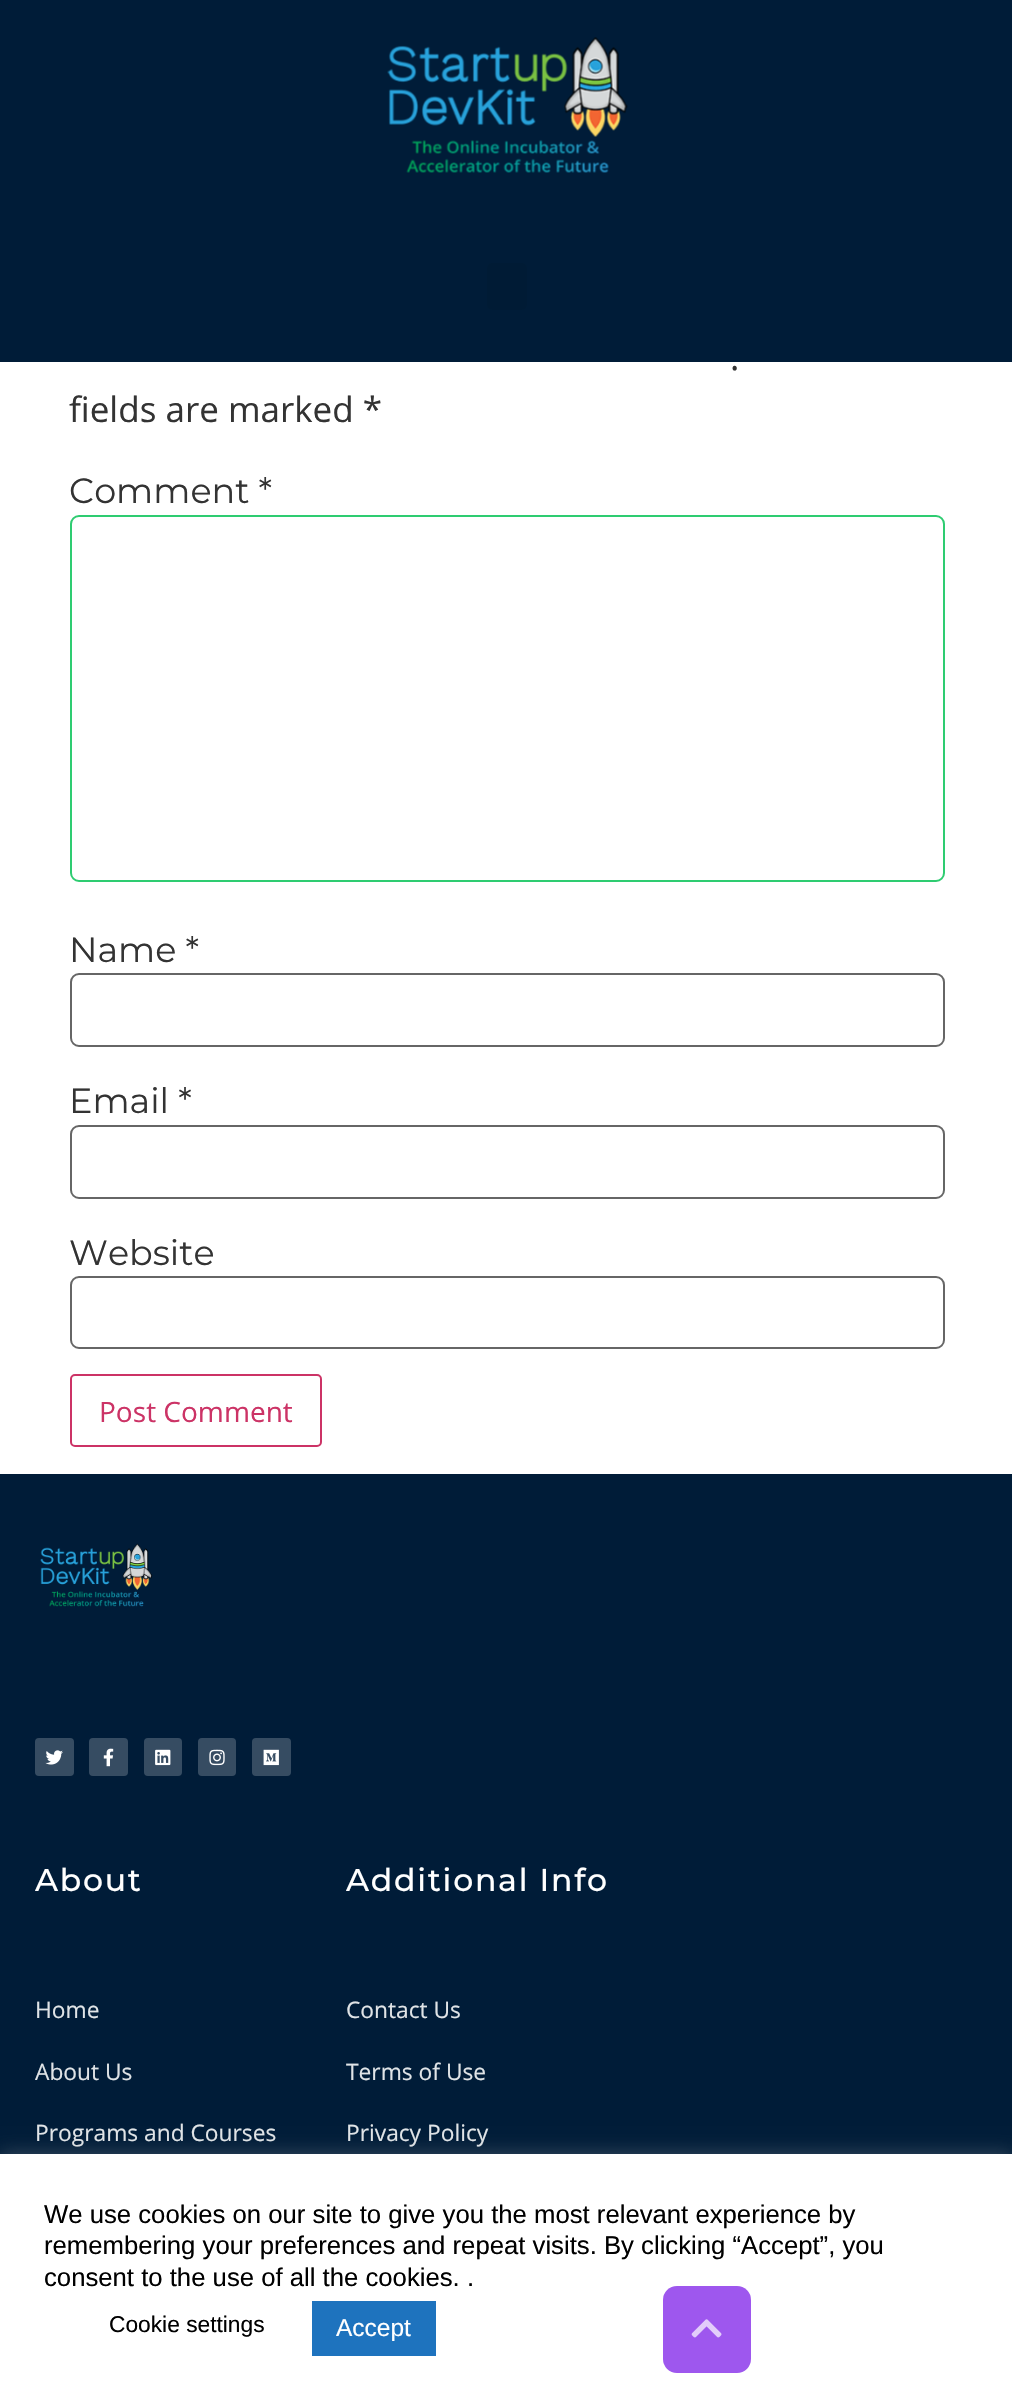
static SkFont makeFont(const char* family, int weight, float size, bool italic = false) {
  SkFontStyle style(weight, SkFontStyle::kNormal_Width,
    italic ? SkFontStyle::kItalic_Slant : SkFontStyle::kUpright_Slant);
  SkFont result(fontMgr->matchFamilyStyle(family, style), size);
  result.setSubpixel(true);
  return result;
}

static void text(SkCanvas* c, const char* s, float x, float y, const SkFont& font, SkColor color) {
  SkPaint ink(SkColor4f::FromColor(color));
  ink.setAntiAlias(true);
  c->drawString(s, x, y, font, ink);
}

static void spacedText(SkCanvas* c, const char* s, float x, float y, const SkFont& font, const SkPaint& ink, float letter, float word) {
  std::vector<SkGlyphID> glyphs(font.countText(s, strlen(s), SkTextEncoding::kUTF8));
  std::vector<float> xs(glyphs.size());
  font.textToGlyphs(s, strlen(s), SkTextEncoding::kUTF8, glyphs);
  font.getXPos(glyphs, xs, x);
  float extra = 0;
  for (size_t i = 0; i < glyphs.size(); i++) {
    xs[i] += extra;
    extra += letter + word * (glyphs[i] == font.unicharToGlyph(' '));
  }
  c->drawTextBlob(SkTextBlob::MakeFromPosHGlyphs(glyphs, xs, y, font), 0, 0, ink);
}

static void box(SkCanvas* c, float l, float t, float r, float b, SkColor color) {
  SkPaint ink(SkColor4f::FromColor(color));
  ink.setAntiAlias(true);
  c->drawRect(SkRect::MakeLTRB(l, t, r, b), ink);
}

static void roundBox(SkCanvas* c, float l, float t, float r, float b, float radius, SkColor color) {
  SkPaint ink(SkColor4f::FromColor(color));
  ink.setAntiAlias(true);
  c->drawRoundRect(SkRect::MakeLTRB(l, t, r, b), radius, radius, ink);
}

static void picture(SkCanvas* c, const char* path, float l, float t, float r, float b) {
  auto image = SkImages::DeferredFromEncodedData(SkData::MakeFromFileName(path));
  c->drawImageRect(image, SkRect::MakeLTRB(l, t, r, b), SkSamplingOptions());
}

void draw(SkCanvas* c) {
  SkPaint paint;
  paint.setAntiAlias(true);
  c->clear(0xffffffff);
  box(c, 0, 0, 1012, 362, 0xff001c38);
  picture(c, "img_01.png", 387, 37, 628, 173);
  roundBox(c, 487, 263, 527, 310, 5, 0xff001b35);
  SkFont face1 = makeFont("Open Sans", 400, 35);
  text(c, ".", 730, 370, face1, 0xff333333);
  text(c, "fields are marked *", 69, 422, face1, 0xff333333);
  SkFont face2 = makeFont("Montserrat", 400, 35);
  text(c, "Comment *", 69, 503, face2, 0xff333333);
  paint.setStyle(SkPaint::kStroke_Style);
  paint.setStrokeWidth(2);
  paint.setColor(0xff2ecc71);
  c->drawRoundRect(SkRect::MakeLTRB(71, 516, 944, 881), 8, 8, paint);
  text(c, "Name *", 69, 962, face2, 0xff333333);
  paint.setColor(0xff666666);
  c->drawRoundRect(SkRect::MakeLTRB(71, 974, 944, 1046), 8, 8, paint);
  text(c, "Email *", 69, 1113, face2, 0xff333333);
  c->drawRoundRect(SkRect::MakeLTRB(71, 1126, 944, 1198), 8, 8, paint);
  text(c, "Website", 69, 1265, face2, 0xff333333);
  c->drawRoundRect(SkRect::MakeLTRB(71, 1277, 944, 1348), 8, 8, paint);
  paint.setColor(0xffcc3366);
  c->drawRoundRect(SkRect::MakeLTRB(71, 1375, 321, 1446), 4, 4, paint);
  SkFont face3 = makeFont("Open Sans", 400, 28);
  text(c, "Post Comment", 99, 1422, face3, 0xffcc3366);
  box(c, 0, 1474, 1012, 2154, 0xff001c38);
  picture(c, "img_02.png", 40, 1543, 153, 1607);
  roundBox(c, 35, 1738, 74, 1776, 4, 0xff364c62);
  picture(c, "img_03.png", 45, 1750, 63, 1765);
  roundBox(c, 89, 1738, 128, 1776, 4, 0xff364c62);
  picture(c, "img_04.png", 103, 1748, 114, 1767);
  roundBox(c, 144, 1738, 182, 1776, 4, 0xff364c62);
  picture(c, "img_05.png", 155, 1749, 171, 1766);
  roundBox(c, 198, 1738, 236, 1776, 4, 0xff364c62);
  picture(c, "img_06.png", 209, 1749, 225, 1766);
  roundBox(c, 252, 1738, 291, 1776, 4, 0xff364c62);
  picture(c, "img_07.png", 263, 1749, 279, 1766);
  SkFont face4 = makeFont("Montserrat", 500, 31.5f);
  paint.setStyle(SkPaint::kFill_Style);
  paint.setColor(0xffffffff);
  spacedText(c, "About", 35, 1891, face4, paint, 1.75f, 0);
  SkFont face5 = makeFont("Open Sans", 400, 22.75f);
  text(c, "Home", 35, 2018, face5, 0xffe0e4e7);
  text(c, "About Us", 35, 2080, face5, 0xffe0e4e7);
  text(c, "Programs and Courses", 35, 2141, face5, 0xffe0e4e7);
  spacedText(c, "Additional Info", 346, 1891, face4, paint, 1.75f, 0);
  text(c, "Contact Us", 346, 2018, face5, 0xffe0e4e7);
  text(c, "Terms of Use", 346, 2080, face5, 0xffe0e4e7);
  text(c, "Privacy Policy", 346, 2141, face5, 0xffe0e4e7);
  paint.setColor(0x4dacabab);
  paint.setMaskFilter(SkMaskFilter::MakeBlur(kNormal_SkBlurStyle, 9));
  c->drawRect(SkRect::MakeLTRB(0, 2153, 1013, 2398), paint);
  paint.setMaskFilter(nullptr);
  box(c, 0, 2154, 1012, 2399, 0xffffffff);
  SkFont face6 = makeFont("Liberation Sans", 400, 25.7f);
  text(c, "We use cookies on our site to give you the most relevant experience by", 44, 2223, face6, 0xff000000);
  text(c, "remembering your preferences and repeat visits. By clicking “Accept”, you", 44, 2254, face6, 0xff000000);
  text(c, "consent to the use of all the cookies. .", 44, 2286, face6, 0xff000000);
  SkFont face7 = makeFont("Liberation Sans", 400, 22.75f);
  text(c, "Cookie settings", 109, 2332, face7, 0xff000000);
  box(c, 312, 2301, 436, 2356, 0xff1e73be);
  SkFont face8 = makeFont("Liberation Sans", 400, 24.5f);
  text(c, "Accept", 336, 2336, face8, 0xffffffff);
  roundBox(c, 663, 2286, 751, 2373, 14, 0xff9e57ee);
  picture(c, "img_08.png", 691, 2319, 722, 2338);
}
